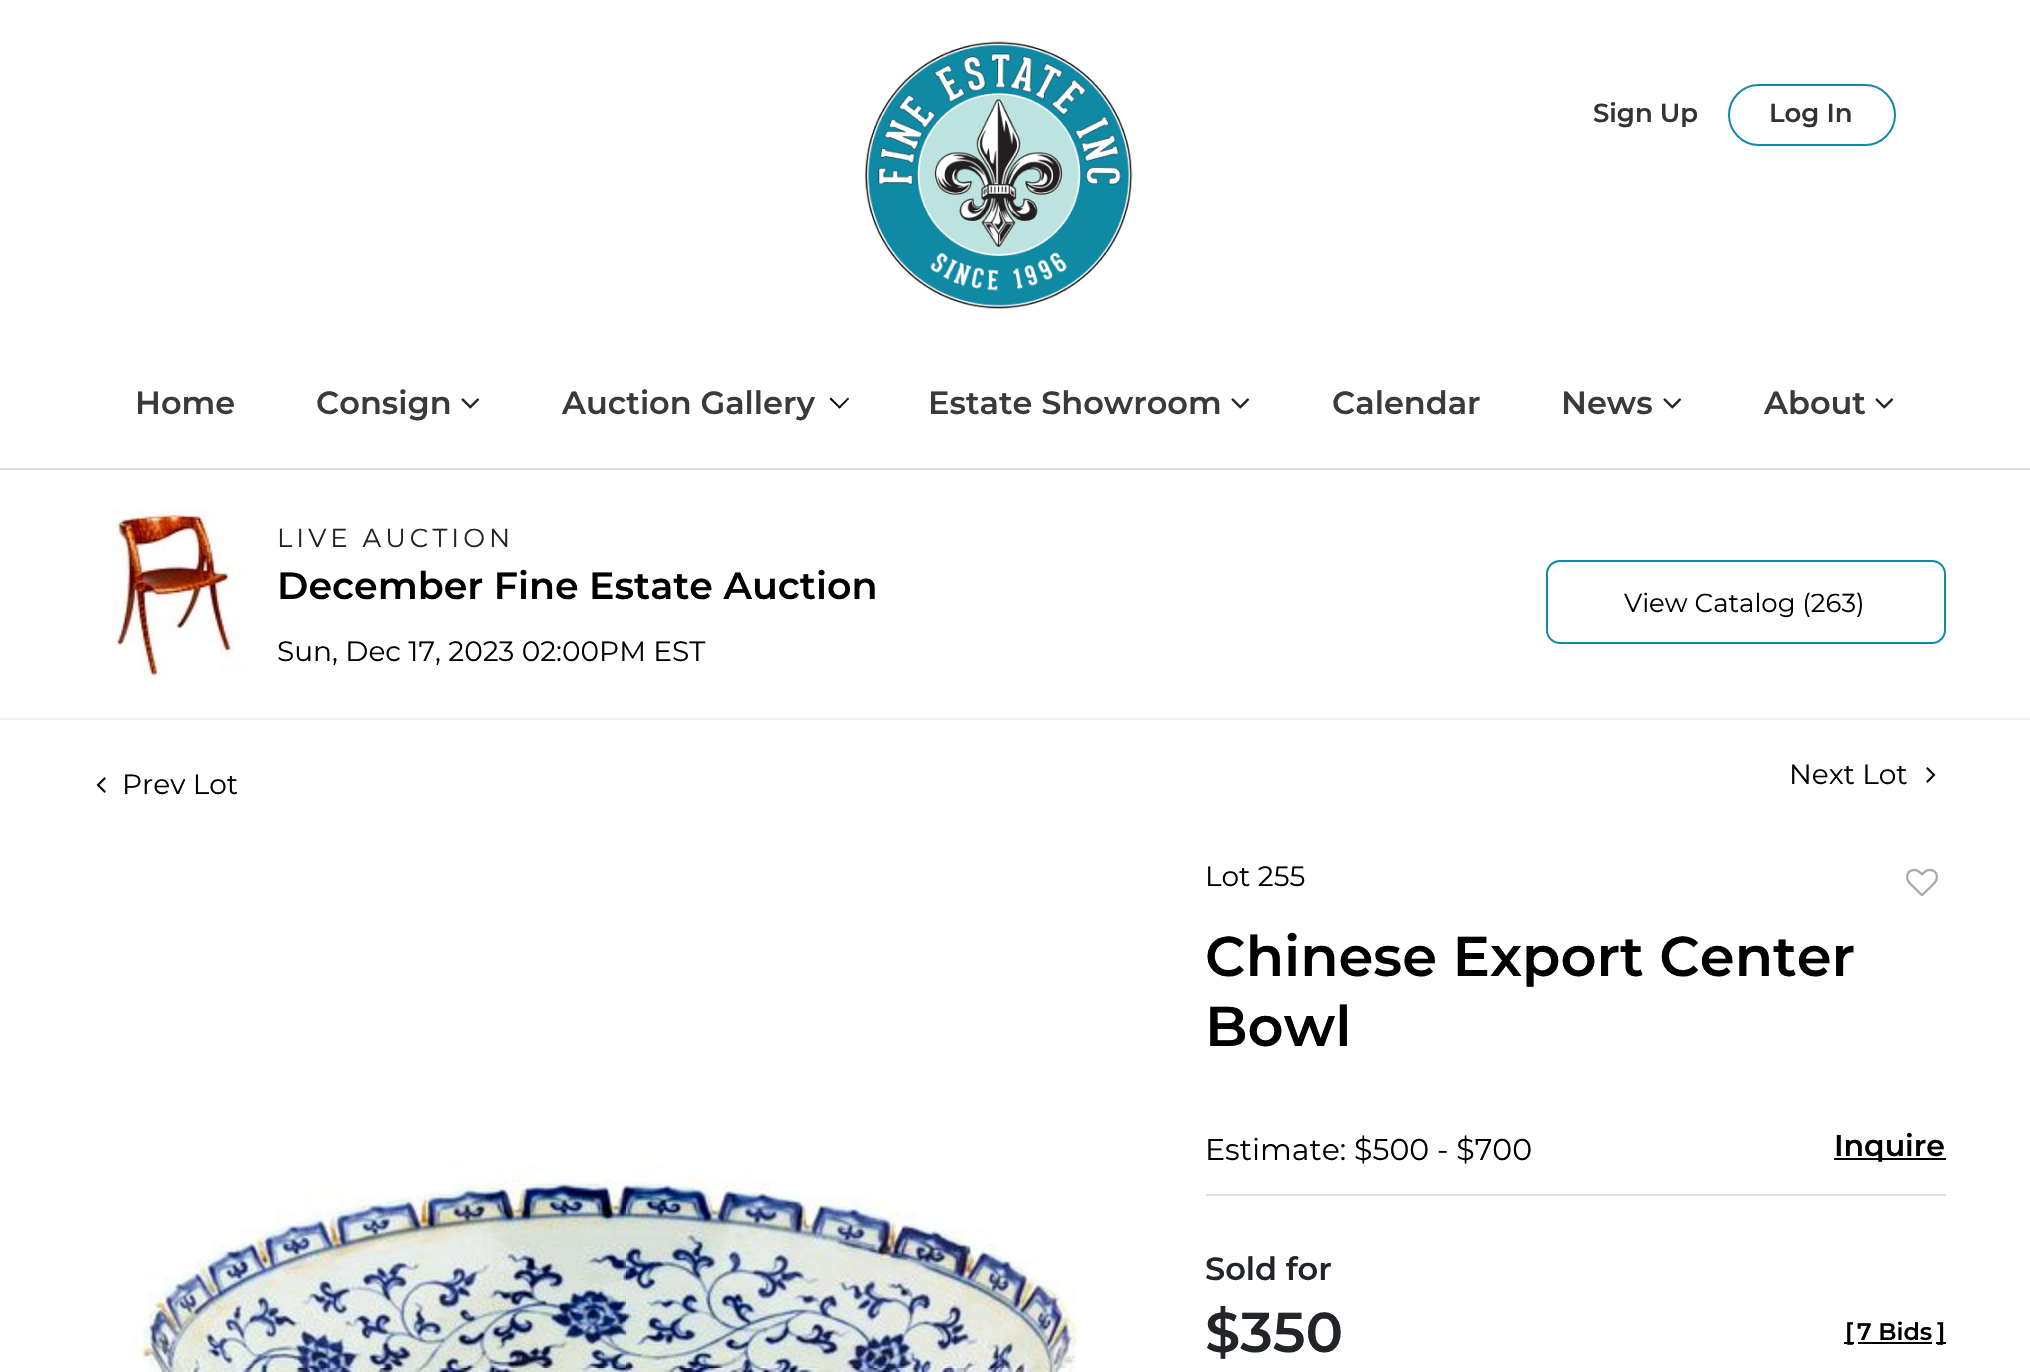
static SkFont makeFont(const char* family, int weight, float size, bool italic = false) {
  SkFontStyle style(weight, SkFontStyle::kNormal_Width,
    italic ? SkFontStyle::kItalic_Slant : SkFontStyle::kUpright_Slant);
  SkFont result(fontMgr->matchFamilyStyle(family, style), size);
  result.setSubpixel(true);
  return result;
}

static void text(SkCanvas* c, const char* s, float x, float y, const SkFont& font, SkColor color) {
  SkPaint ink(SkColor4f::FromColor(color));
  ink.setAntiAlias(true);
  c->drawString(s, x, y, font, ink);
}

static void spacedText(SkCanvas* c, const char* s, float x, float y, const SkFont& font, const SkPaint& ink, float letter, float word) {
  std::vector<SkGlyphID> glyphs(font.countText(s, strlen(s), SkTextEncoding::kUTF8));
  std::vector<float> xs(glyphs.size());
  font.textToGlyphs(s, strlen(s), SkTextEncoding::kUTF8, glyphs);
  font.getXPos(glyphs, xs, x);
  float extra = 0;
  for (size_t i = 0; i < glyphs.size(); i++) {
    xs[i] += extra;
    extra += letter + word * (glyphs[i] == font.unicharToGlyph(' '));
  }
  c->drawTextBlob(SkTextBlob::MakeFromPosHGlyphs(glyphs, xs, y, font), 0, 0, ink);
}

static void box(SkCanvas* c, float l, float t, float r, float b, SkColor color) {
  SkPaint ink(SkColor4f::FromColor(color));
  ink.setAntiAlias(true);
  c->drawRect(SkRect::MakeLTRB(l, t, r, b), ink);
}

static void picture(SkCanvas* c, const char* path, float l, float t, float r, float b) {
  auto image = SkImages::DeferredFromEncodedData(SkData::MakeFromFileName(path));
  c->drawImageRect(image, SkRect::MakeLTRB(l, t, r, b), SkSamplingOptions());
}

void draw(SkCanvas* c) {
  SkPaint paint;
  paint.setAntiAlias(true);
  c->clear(0xffffffff);
  picture(c, "img_01.png", 864, 41, 1133, 309);
  box(c, 0, 468, 2030, 470, 0xffdddddd);
  SkFont face1 = makeFont("Montserrat", 600, 26);
  text(c, "Sign Up", 1593, 122, face1, 0xff333333);
  paint.setStyle(SkPaint::kStroke_Style);
  paint.setStrokeWidth(2);
  paint.setColor(0xff1089a4);
  c->drawRoundRect(SkRect::MakeLTRB(1729, 85, 1895, 145), 30, 30, paint);
  text(c, "Log In", 1769, 122, face1, 0xff333333);
  SkFont face2 = makeFont("Montserrat", 600, 32);
  text(c, "Home", 135, 414, face2, 0xff3a3a3a);
  text(c, "Consign", 316, 414, face2, 0xff3a3a3a);
  picture(c, "img_02.png", 461, 398, 480, 409);
  text(c, "Auction Gallery", 562, 414, face2, 0xff3a3a3a);
  paint.setStyle(SkPaint::kFill_Style);
  paint.setColor(0xff000000);
  c->drawPath(SkPathBuilder().moveTo(848, 397.5f).lineTo(849, 399).lineTo(839.5f, 408.5f).lineTo(838, 407.5f).close().detach(), paint);
  c->drawPath(SkPathBuilder().moveTo(831, 397.5f).lineTo(841, 407.5f).lineTo(839.5f, 408.5f).lineTo(829.5f, 399).close().detach(), paint);
  text(c, "Estate Showroom", 928, 414, face2, 0xff3a3a3a);
  picture(c, "img_02.png", 1231, 398, 1250, 409);
  text(c, "Calendar", 1332, 414, face2, 0xff3a3a3a);
  text(c, "News", 1561, 414, face2, 0xff3a3a3a);
  picture(c, "img_02.png", 1663, 398, 1682, 409);
  text(c, "About", 1764, 414, face2, 0xff3a3a3a);
  picture(c, "img_02.png", 1875, 398, 1894, 409);
  picture(c, "img_03.png", 112, 510, 247, 678);
  SkFont face3 = makeFont("Montserrat", 400, 26);
  paint.setColor(0xff212529);
  spacedText(c, "LIVE AUCTION", 277, 547, face3, paint, 4, 0);
  SkFont face4 = makeFont("Montserrat", 600, 38);
  text(c, "December Fine Estate Auction", 277, 599, face4, 0xff000000);
  SkFont face5 = makeFont("Montserrat", 400, 28);
  text(c, "Sun, Dec 17, 2023 02:00PM EST", 277, 661, face5, 0xff000000);
  paint.setStyle(SkPaint::kStroke_Style);
  paint.setColor(0xff1089a4);
  c->drawRoundRect(SkRect::MakeLTRB(1547, 561, 1945, 643), 13, 13, paint);
  text(c, "View Catalog (263)", 1624, 612, face3, 0xff000000);
  box(c, 0, 718, 2030, 720, 0xffeeeeee);
  picture(c, "img_04.png", 96, 777, 106, 793);
  text(c, "Prev Lot", 122, 794, face5, 0xff000000);
  text(c, "Next Lot", 1789, 784, face5, 0xff000000);
  picture(c, "img_05.png", 1926, 767, 1936, 783);
  picture(c, "img_06.png", 125, 1163, 1078, 1372);
  text(c, "Lot 255", 1205, 886, face5, 0xff000000);
  picture(c, "img_07.png", 1906, 868, 1938, 897);
  SkFont face6 = makeFont("Montserrat", 600, 56);
  text(c, "Chinese Export Center", 1205, 976, face6, 0xff000000);
  text(c, "Bowl", 1205, 1046, face6, 0xff000000);
  box(c, 1206, 1194, 1946, 1196, 0xffe0e0e0);
  SkFont face7 = makeFont("Montserrat", 400, 30);
  text(c, "Estimate: $500 - $700", 1205, 1160, face7, 0xff000000);
  box(c, 1834, 1158, 1946, 1160, 0xff000000);
  SkFont face8 = makeFont("Montserrat", 600, 30);
  text(c, "Inquire", 1834, 1156, face8, 0xff000000);
  text(c, "Sold for", 1205, 1280, face2, 0xff212529);
  text(c, "$350", 1205, 1352, face6, 0xff212529);
  box(c, 1844, 1342, 1854, 1344, 0xff000000);
  SkFont face9 = makeFont("Montserrat", 600, 24);
  text(c, "[", 1845, 1340, face9, 0xff000000);
  text(c, "7 Bids", 1857, 1340, face9, 0xff000000);
  box(c, 1858, 1342, 1932, 1344, 0xff000000);
  box(c, 1936, 1342, 1946, 1344, 0xff000000);
  text(c, "]", 1937, 1340, face9, 0xff000000);
}
